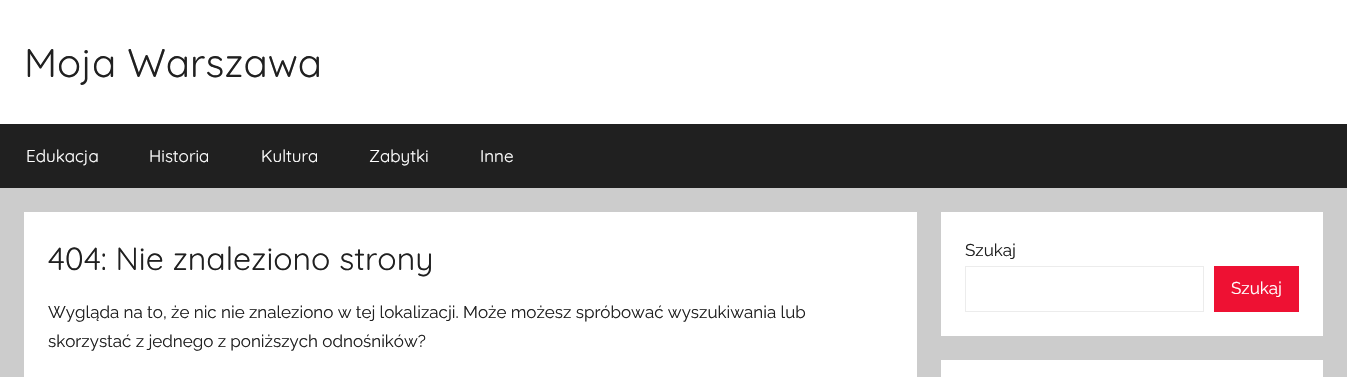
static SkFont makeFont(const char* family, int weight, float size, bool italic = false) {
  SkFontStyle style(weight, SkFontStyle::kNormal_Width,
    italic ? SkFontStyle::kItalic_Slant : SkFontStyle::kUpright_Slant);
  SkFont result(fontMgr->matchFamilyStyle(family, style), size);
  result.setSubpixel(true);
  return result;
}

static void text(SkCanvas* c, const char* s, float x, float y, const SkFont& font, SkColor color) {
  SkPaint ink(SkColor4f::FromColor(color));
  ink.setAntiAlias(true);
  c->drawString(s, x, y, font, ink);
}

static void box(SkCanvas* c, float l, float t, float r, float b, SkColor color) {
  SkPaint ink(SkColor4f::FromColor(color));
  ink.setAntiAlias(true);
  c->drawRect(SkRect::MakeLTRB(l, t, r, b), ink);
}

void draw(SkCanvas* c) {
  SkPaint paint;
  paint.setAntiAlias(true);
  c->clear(0xffcccccc);
  box(c, 0, 0, 1347, 124, 0xffffffff);
  SkFont face1 = makeFont("Quicksand", 400, 40);
  text(c, "Moja Warszawa", 24, 77, face1, 0xff202020);
  box(c, 0, 124, 1347, 188, 0xff202020);
  SkFont face2 = makeFont("Quicksand", 400, 17);
  text(c, "Edukacja", 26, 162, face2, 0xffffffff);
  text(c, "Historia", 149, 162, face2, 0xffffffff);
  text(c, "Kultura", 261, 162, face2, 0xffffffff);
  text(c, "Zabytki", 369, 162, face2, 0xffffffff);
  text(c, "Inne", 480, 162, face2, 0xffffffff);
  box(c, 24, 212, 917, 377, 0xffffffff);
  SkFont face3 = makeFont("Quicksand", 400, 32);
  text(c, "404: Nie znaleziono strony", 48, 270, face3, 0xff202020);
  SkFont face4 = makeFont("Raleway", 400, 17);
  text(c, "Wygląda na to, że nic nie znaleziono w tej lokalizacji. Może możesz spróbować wyszukiwania lub", 48, 318, face4, 0xff202020);
  text(c, "skorzystać z jednego z poniższych odnośników?", 48, 347, face4, 0xff202020);
  box(c, 941, 212, 1323, 336, 0xffffffff);
  text(c, "Szukaj", 965, 256, face4, 0xff202020);
  paint.setStyle(SkPaint::kStroke_Style);
  paint.setStrokeWidth(1);
  paint.setColor(0xffececec);
  c->drawRect(SkRect::MakeLTRB(965.5f, 266.5f, 1203.5f, 311.5f), paint);
  box(c, 1214, 266, 1299, 312, 0xffee1133);
  text(c, "Szukaj", 1231, 294, face4, 0xffffffff);
  box(c, 941, 360, 1323, 377, 0xffffffff);
}
